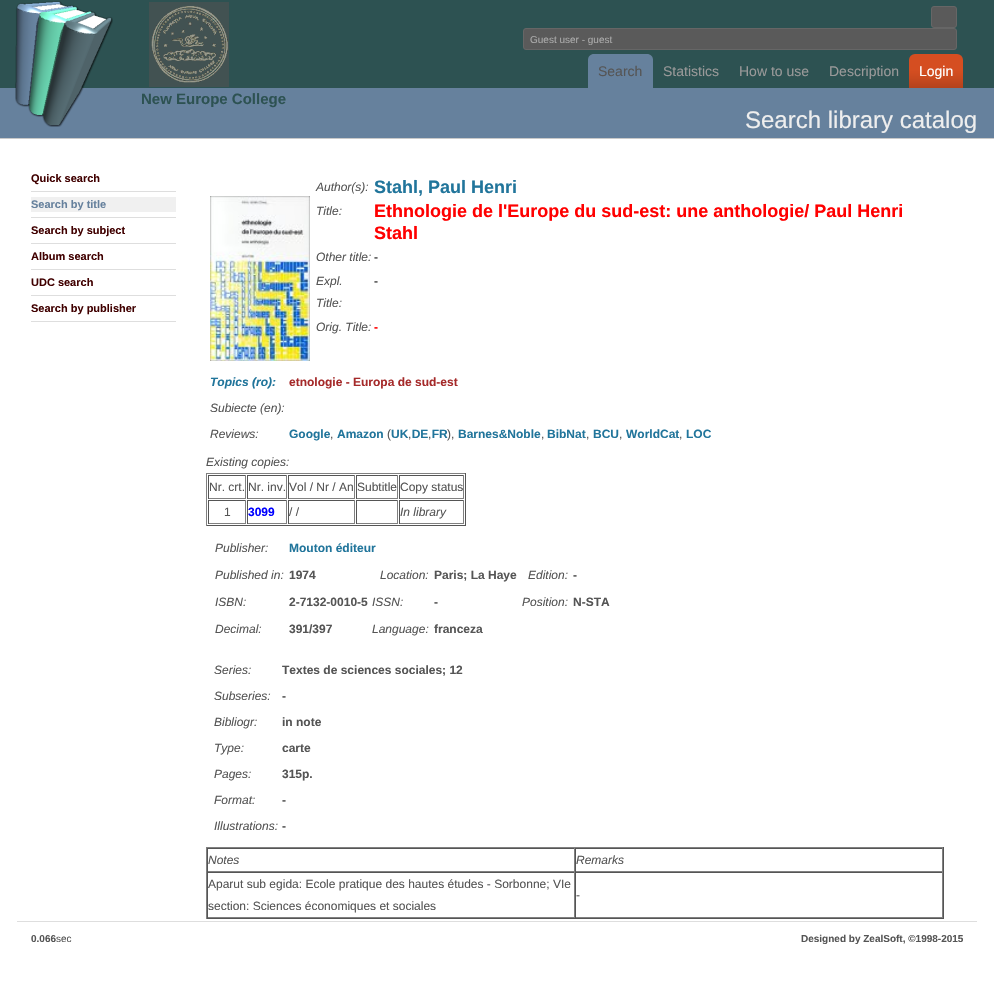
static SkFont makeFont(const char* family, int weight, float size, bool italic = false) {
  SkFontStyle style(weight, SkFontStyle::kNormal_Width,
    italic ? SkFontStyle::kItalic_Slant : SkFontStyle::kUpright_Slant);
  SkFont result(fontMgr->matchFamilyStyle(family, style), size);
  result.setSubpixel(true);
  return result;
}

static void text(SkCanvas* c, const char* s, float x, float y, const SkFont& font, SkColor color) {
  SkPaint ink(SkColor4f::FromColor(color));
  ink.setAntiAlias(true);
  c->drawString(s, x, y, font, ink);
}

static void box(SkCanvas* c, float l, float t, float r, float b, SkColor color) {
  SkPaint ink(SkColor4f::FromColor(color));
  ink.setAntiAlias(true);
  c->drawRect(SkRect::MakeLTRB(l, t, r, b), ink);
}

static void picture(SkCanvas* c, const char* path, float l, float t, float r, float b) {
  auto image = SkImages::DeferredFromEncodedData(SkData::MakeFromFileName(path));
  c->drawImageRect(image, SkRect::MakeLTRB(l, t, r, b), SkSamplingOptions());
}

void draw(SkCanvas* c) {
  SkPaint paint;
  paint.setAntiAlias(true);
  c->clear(0xffffffff);
  box(c, 0, 0, 994, 88, 0xff2d5252);
  box(c, 0, 88, 994, 138, 0xff66819d);
  picture(c, "img_01.png", 15, 1, 113, 127);
  picture(c, "img_02.png", 149, 2, 229, 87);
  paint.setColor(0xff5a5a5a);
  c->drawRoundRect(SkRect::MakeLTRB(931.5f, 6.5f, 956.5f, 27.5f), 2.5f, 2.5f, paint);
  paint.setStyle(SkPaint::kStroke_Style);
  paint.setStrokeWidth(1);
  paint.setColor(0xff666666);
  c->drawRoundRect(SkRect::MakeLTRB(931.5f, 6.5f, 956.5f, 27.5f), 2.5f, 2.5f, paint);
  paint.setStyle(SkPaint::kFill_Style);
  paint.setColor(0xff5a5a5a);
  c->drawRoundRect(SkRect::MakeLTRB(523.5f, 28.5f, 956.5f, 49.5f), 2.5f, 2.5f, paint);
  paint.setStyle(SkPaint::kStroke_Style);
  paint.setColor(0xff666666);
  c->drawRoundRect(SkRect::MakeLTRB(523.5f, 28.5f, 956.5f, 49.5f), 2.5f, 2.5f, paint);
  SkFont face1 = makeFont("Liberation Sans", 400, 10);
  text(c, "Guest user - guest", 530, 43, face1, 0xffaaaaaa);
  paint.setStyle(SkPaint::kFill_Style);
  paint.setColor(0xff66819d);
  c->drawPath(SkPathBuilder().moveTo(594, 54).lineTo(647, 54).cubicTo(650.5f, 54, 653, 56.5f, 653, 60).lineTo(653, 88).lineTo(588, 88).lineTo(588, 60).cubicTo(588, 56.5f, 590.5f, 54, 594, 54).close().detach(), paint);
  SkFont face2 = makeFont("Liberation Sans", 400, 14);
  text(c, "Search", 598, 76, face2, 0xff555555);
  text(c, "Statistics", 663, 76, face2, 0xff999999);
  text(c, "How to use", 739, 76, face2, 0xff999999);
  text(c, "Description", 829, 76, face2, 0xff999999);
  picture(c, "img_03.png", 909, 54, 963, 88);
  text(c, "Login", 919, 76, face2, 0xffffffff);
  SkFont face3 = makeFont("Liberation Sans", 700, 15);
  text(c, "New Europe College", 141, 104, face3, 0xff2d5252);
  box(c, 0, 138, 994, 139, 0xffc9c9c9);
  SkFont face4 = makeFont("Liberation Sans", 400, 24);
  text(c, "Search library catalog", 745, 128, face4, 0xffeeeeee);
  box(c, 31, 191, 176, 192, 0xffdedede);
  SkFont face5 = makeFont("Liberation Sans", 700, 11);
  text(c, "Quick search", 31, 182, face5, 0xff400000);
  box(c, 31, 217, 176, 218, 0xffdedede);
  box(c, 31, 197, 176, 212, 0xfff0f0f0);
  text(c, "Search by title", 31, 208, face5, 0xff66819d);
  box(c, 31, 243, 176, 244, 0xffdedede);
  text(c, "Search by subject", 31, 234, face5, 0xff400000);
  box(c, 31, 269, 176, 270, 0xffdedede);
  text(c, "Album search", 31, 260, face5, 0xff400000);
  box(c, 31, 295, 176, 296, 0xffdedede);
  text(c, "UDC search", 31, 286, face5, 0xff400000);
  box(c, 31, 321, 176, 322, 0xffdedede);
  text(c, "Search by publisher", 31, 312, face5, 0xff400000);
  picture(c, "img_04.png", 210, 196, 310, 361);
  SkFont face6 = makeFont("Liberation Sans", 400, 12, true);
  text(c, "Author(s):", 316, 191, face6, 0xff555555);
  SkFont face7 = makeFont("Liberation Sans", 700, 18);
  text(c, "Stahl, Paul Henri", 374, 193, face7, 0xff21759b);
  text(c, "Title:", 316, 215, face6, 0xff555555);
  text(c, "Ethnologie de l'Europe du sud-est: une anthologie/ Paul Henri", 374, 217, face7, 0xffff0000);
  text(c, "Stahl", 374, 239, face7, 0xffff0000);
  text(c, "Other title:", 316, 261, face6, 0xff555555);
  SkFont face8 = makeFont("Liberation Sans", 700, 12);
  text(c, "-", 374, 261, face8, 0xff555555);
  text(c, "Expl.", 316, 285, face6, 0xff555555);
  text(c, "Title:", 316, 307, face6, 0xff555555);
  text(c, "-", 374, 285, face8, 0xff555555);
  text(c, "Orig. Title:", 316, 331, face6, 0xff555555);
  text(c, "-", 374, 331, face8, 0xffff0000);
  SkFont face9 = makeFont("Liberation Sans", 700, 12, true);
  text(c, "Topics (ro):", 210, 386, face9, 0xff21759b);
  text(c, "etnologie - Europa de sud-est", 289, 386, face8, 0xffa52a2a);
  text(c, "Subiecte (en):", 210, 412, face6, 0xff555555);
  text(c, "Reviews:", 210, 438, face6, 0xff555555);
  text(c, "Google", 289, 438, face8, 0xff21759b);
  SkFont face10 = makeFont("Liberation Sans", 400, 12);
  text(c, ",", 330, 438, face10, 0xff555555);
  text(c, "Amazon", 337, 438, face8, 0xff21759b);
  text(c, "(", 387, 438, face10, 0xff555555);
  text(c, "UK DE FR", 391, 438, face8, 0xff21759b);
  text(c, "),", 447, 438, face10, 0xff555555);
  text(c, "Barnes&Noble", 458, 438, face8, 0xff21759b);
  text(c, "BibNat", 547, 438, face8, 0xff21759b);
  text(c, "BCU", 593, 438, face8, 0xff21759b);
  text(c, "WorldCat", 626, 438, face8, 0xff21759b);
  text(c, "LOC", 686, 438, face8, 0xff21759b);
  text(c, ",", 408, 438, face10, 0xff555555);
  text(c, ",", 428, 438, face10, 0xff555555);
  text(c, ",", 541, 438, face10, 0xff555555);
  text(c, ",", 586, 438, face10, 0xff555555);
  text(c, ",", 619, 438, face10, 0xff555555);
  text(c, ",", 679, 438, face10, 0xff555555);
  text(c, "Existing copies:", 206, 466, face6, 0xff555555);
  box(c, 206, 473, 466, 474, 0xff808080);
  box(c, 465, 473, 466, 526, 0xff555555);
  box(c, 206, 525, 466, 526, 0xff555555);
  box(c, 206, 473, 207, 526, 0xff808080);
  box(c, 208, 475, 246, 476, 0xff555555);
  box(c, 245, 475, 246, 499, 0xff808080);
  box(c, 208, 498, 246, 499, 0xff808080);
  box(c, 208, 475, 209, 499, 0xff555555);
  text(c, "Nr. crt.", 209, 491, face10, 0xff555555);
  box(c, 247, 475, 287, 476, 0xff555555);
  box(c, 286, 475, 287, 499, 0xff808080);
  box(c, 247, 498, 287, 499, 0xff808080);
  box(c, 247, 475, 248, 499, 0xff555555);
  text(c, "Nr. inv.", 248, 491, face10, 0xff555555);
  box(c, 288, 475, 355, 476, 0xff555555);
  box(c, 354, 475, 355, 499, 0xff808080);
  box(c, 288, 498, 355, 499, 0xff808080);
  box(c, 288, 475, 289, 499, 0xff555555);
  text(c, "Vol / Nr / An", 289, 491, face10, 0xff555555);
  box(c, 356, 475, 398, 476, 0xff555555);
  box(c, 397, 475, 398, 499, 0xff808080);
  box(c, 356, 498, 398, 499, 0xff808080);
  box(c, 356, 475, 357, 499, 0xff555555);
  text(c, "Subtitle", 357, 491, face10, 0xff555555);
  box(c, 399, 475, 464, 476, 0xff555555);
  box(c, 463, 475, 464, 499, 0xff808080);
  box(c, 399, 498, 464, 499, 0xff808080);
  box(c, 399, 475, 400, 499, 0xff555555);
  text(c, "Copy status", 400, 491, face10, 0xff555555);
  box(c, 208, 500, 246, 501, 0xff555555);
  box(c, 245, 500, 246, 524, 0xff808080);
  box(c, 208, 523, 246, 524, 0xff808080);
  box(c, 208, 500, 209, 524, 0xff555555);
  text(c, "1", 224, 516, face10, 0xff555555);
  box(c, 247, 500, 287, 501, 0xff555555);
  box(c, 286, 500, 287, 524, 0xff808080);
  box(c, 247, 523, 287, 524, 0xff808080);
  box(c, 247, 500, 248, 524, 0xff555555);
  text(c, "3099", 248, 516, face8, 0xff0000ff);
  box(c, 288, 500, 355, 501, 0xff555555);
  box(c, 354, 500, 355, 524, 0xff808080);
  box(c, 288, 523, 355, 524, 0xff808080);
  box(c, 288, 500, 289, 524, 0xff555555);
  text(c, "/ /", 289, 516, face10, 0xff555555);
  box(c, 356, 500, 398, 501, 0xff555555);
  box(c, 397, 500, 398, 524, 0xff808080);
  box(c, 356, 523, 398, 524, 0xff808080);
  box(c, 356, 500, 357, 524, 0xff555555);
  box(c, 399, 500, 464, 501, 0xff555555);
  box(c, 463, 500, 464, 524, 0xff808080);
  box(c, 399, 523, 464, 524, 0xff808080);
  box(c, 399, 500, 400, 524, 0xff555555);
  text(c, "In library", 400, 516, face6, 0xff555555);
  text(c, "Publisher:", 215, 552, face6, 0xff555555);
  text(c, "Mouton éditeur", 289, 552, face8, 0xff21759b);
  text(c, "Published in:", 215, 579, face6, 0xff555555);
  text(c, "1974", 289, 579, face8, 0xff555555);
  text(c, "Location:", 380, 579, face6, 0xff555555);
  text(c, "Paris; La Haye", 434, 579, face8, 0xff555555);
  text(c, "Edition:", 528, 579, face6, 0xff555555);
  text(c, "-", 573, 579, face8, 0xff555555);
  text(c, "ISBN:", 215, 606, face6, 0xff555555);
  text(c, "2-7132-0010-5", 289, 606, face8, 0xff555555);
  text(c, "ISSN:", 372, 606, face6, 0xff555555);
  text(c, "-", 434, 606, face8, 0xff555555);
  text(c, "Position:", 522, 606, face6, 0xff555555);
  text(c, "N-STA", 573, 606, face8, 0xff555555);
  text(c, "Decimal:", 215, 633, face6, 0xff555555);
  text(c, "391/397", 289, 633, face8, 0xff555555);
  text(c, "Language:", 372, 633, face6, 0xff555555);
  text(c, "franceza", 434, 633, face8, 0xff555555);
  text(c, "Series:", 214, 674, face6, 0xff555555);
  text(c, "Textes de sciences sociales; 12", 282, 674, face8, 0xff555555);
  text(c, "Subseries:", 214, 700, face6, 0xff555555);
  text(c, "-", 282, 700, face8, 0xff555555);
  text(c, "Bibliogr:", 214, 726, face6, 0xff555555);
  text(c, "in note", 282, 726, face8, 0xff555555);
  text(c, "Type:", 214, 752, face6, 0xff555555);
  text(c, "carte", 282, 752, face8, 0xff555555);
  text(c, "Pages:", 214, 778, face6, 0xff555555);
  text(c, "315p.", 282, 778, face8, 0xff555555);
  text(c, "Format:", 214, 804, face6, 0xff555555);
  text(c, "-", 282, 804, face8, 0xff555555);
  text(c, "Illustrations:", 214, 830, face6, 0xff555555);
  text(c, "-", 282, 830, face8, 0xff555555);
  box(c, 206, 847, 944, 848, 0xff808080);
  box(c, 943, 847, 944, 919, 0xff555555);
  box(c, 206, 918, 944, 919, 0xff555555);
  box(c, 206, 847, 207, 919, 0xff808080);
  box(c, 207, 848, 943, 849, 0xff555555);
  box(c, 574, 848, 575, 872, 0xff808080);
  box(c, 207, 871, 575, 872, 0xff808080);
  box(c, 207, 848, 208, 872, 0xff555555);
  text(c, "Notes", 208, 864, face6, 0xff555555);
  box(c, 942, 848, 943, 872, 0xff808080);
  box(c, 575, 871, 943, 872, 0xff808080);
  box(c, 575, 848, 576, 872, 0xff555555);
  text(c, "Remarks", 576, 864, face6, 0xff555555);
  box(c, 207, 872, 943, 873, 0xff555555);
  box(c, 574, 872, 575, 918, 0xff808080);
  box(c, 207, 917, 575, 918, 0xff808080);
  box(c, 207, 872, 208, 918, 0xff555555);
  text(c, "Aparut sub egida: Ecole pratique des hautes études - Sorbonne; VIe", 208, 888, face10, 0xff555555);
  text(c, "section: Sciences économiques et sociales", 208, 910, face10, 0xff555555);
  box(c, 942, 872, 943, 918, 0xff808080);
  box(c, 575, 917, 943, 918, 0xff808080);
  box(c, 575, 872, 576, 918, 0xff555555);
  text(c, "-", 576, 899, face10, 0xff555555);
  box(c, 17, 921, 977, 922, 0xffdedede);
  SkFont face11 = makeFont("Liberation Sans", 700, 10);
  text(c, "0.066", 31, 942, face11, 0xff555555);
  text(c, "sec", 56, 942, face1, 0xff555555);
  text(c, "Designed by ZealSoft, ©1998-2015", 801, 942, face11, 0xff555555);
}
